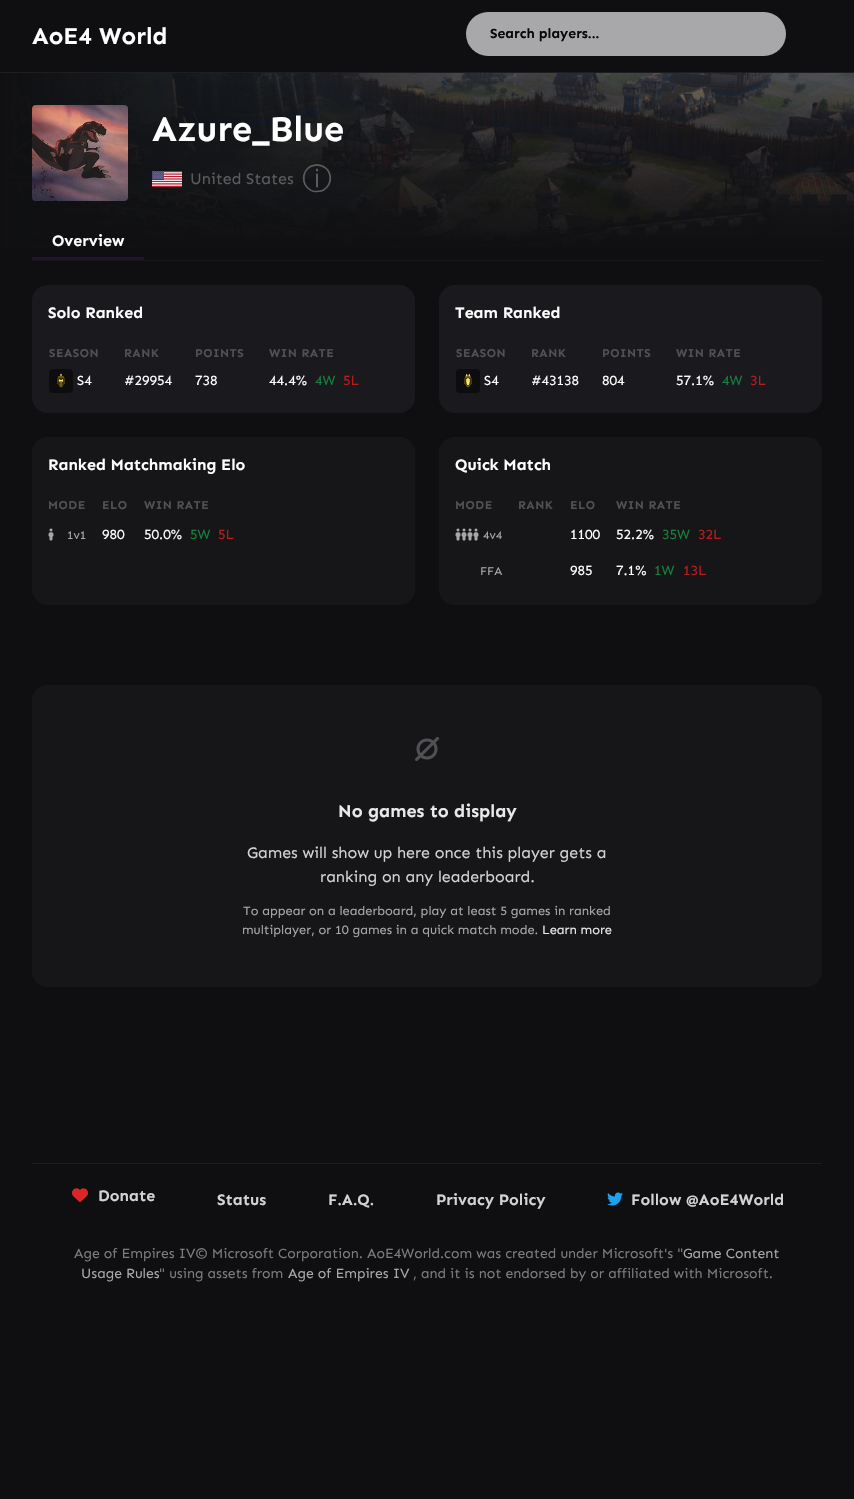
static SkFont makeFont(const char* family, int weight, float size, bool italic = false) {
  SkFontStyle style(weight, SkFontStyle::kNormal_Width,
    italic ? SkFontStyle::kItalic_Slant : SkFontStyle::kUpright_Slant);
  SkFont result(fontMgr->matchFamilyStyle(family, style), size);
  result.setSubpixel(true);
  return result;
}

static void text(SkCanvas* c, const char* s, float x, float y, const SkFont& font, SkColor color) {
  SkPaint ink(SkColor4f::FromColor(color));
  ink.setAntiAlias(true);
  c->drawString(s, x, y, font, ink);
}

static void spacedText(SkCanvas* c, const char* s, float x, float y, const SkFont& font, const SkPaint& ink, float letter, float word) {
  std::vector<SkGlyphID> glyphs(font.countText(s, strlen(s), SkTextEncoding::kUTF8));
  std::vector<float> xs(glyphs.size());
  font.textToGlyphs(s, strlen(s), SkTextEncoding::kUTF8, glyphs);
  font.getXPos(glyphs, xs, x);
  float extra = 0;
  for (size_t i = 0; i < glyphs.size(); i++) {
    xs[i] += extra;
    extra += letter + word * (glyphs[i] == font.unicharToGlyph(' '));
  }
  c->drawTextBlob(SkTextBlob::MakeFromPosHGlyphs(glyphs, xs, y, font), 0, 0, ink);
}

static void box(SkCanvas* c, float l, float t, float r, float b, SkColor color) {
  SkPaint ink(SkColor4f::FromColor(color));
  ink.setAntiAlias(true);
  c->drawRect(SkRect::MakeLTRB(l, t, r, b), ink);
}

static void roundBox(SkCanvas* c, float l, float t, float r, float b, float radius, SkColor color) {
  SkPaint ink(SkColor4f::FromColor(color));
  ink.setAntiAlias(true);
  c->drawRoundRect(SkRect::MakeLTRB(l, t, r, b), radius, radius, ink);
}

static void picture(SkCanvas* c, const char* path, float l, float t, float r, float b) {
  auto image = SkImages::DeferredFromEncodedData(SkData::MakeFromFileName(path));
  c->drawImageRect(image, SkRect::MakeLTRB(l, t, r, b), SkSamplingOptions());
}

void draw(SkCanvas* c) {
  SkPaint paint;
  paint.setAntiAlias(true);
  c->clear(0xff0f0f11);
  box(c, 0, 72, 854, 73, 0xff1e1e22);
  SkFont face1 = makeFont("Sen", 700, 24);
  text(c, "AoE4 World", 32, 44, face1, 0xffffffff);
  roundBox(c, 466, 12, 786, 56, 22, 0xffa8a8aa);
  SkFont face2 = makeFont("Sen", 700, 14);
  text(c, "Search players...", 490, 38, face2, 0xff070708);
  picture(c, "img_01.png", 3, 73, 854, 248);
  {
    const SkColor colors[] = {0xff0f0f11, 0x000f0f11};
    const float stops[] = {0, 1};
    const SkPoint ends[] = {{0, 161}, {512, 161}};
    paint.setShader(SkGradientShader::MakeLinear(ends, colors, stops, 2, SkTileMode::kClamp));
    paint.setAlpha(255);
  }
  c->drawRect(SkRect::MakeLTRB(3, 73, 491, 248), paint);
  {
    const SkColor colors[] = {0x000f0f11, 0xff0f0f11};
    const float stops[] = {0, 1};
    const SkPoint ends[] = {{427, 73}, {427, 249}};
    paint.setShader(SkGradientShader::MakeLinear(ends, colors, stops, 2, SkTileMode::kClamp));
    paint.setAlpha(255);
  }
  c->drawRect(SkRect::MakeLTRB(28, 81, 854, 248), paint);
  picture(c, "img_02.png", 32, 105, 128, 201);
  SkFont face3 = makeFont("Sen", 700, 36);
  text(c, "Azure_Blue", 152, 141, face3, 0xffffffff);
  picture(c, "img_03.png", 152, 171, 182, 187);
  SkFont face4 = makeFont("Sen", 400, 16);
  text(c, "United States", 190, 184, face4, 0xff5b5c5e);
  SkFont face5 = makeFont("WenQuanYi Zen Hei", 500, 30);
  text(c, "ⓘ", 302, 189, face5, 0xff5b5c5e);
  box(c, 32, 260, 822, 261, 0xff161619);
  box(c, 32, 257, 144, 260, 0xff251337);
  SkFont face6 = makeFont("Sen", 700, 16);
  text(c, "Overview", 52, 246, face6, 0xffffffff);
  roundBox(c, 32, 285, 415, 413, 16, 0xff1a1a1e);
  text(c, "Solo Ranked", 48, 318, face6, 0xffffffff);
  SkFont face7 = makeFont("Sen", 700, 12);
  paint.setShader(nullptr);
  paint.setColor(0xff515155);
  spacedText(c, "SEASON", 49, 357, face7, paint, 0.5f, 0);
  spacedText(c, "RANK", 124, 357, face7, paint, 0.5f, 0);
  spacedText(c, "POINTS", 195, 357, face7, paint, 0.5f, 0);
  spacedText(c, "WIN RATE", 269, 357, face7, paint, 0.5f, 0);
  roundBox(c, 49, 369, 73, 393, 4, 0xff0d0d0f);
  picture(c, "img_04.png", 57, 373, 65, 388);
  SkFont face8 = makeFont("Sen", 400, 14);
  text(c, "S4", 77, 385, face8, 0xffffffff);
  text(c, "#29954", 124, 385, face8, 0xffffffff);
  text(c, "738", 195, 385, face8, 0xffffffff);
  text(c, "44.4%", 269, 385, face8, 0xffffffff);
  text(c, "4W", 315, 385, face8, 0xff15803d);
  text(c, "5L", 343, 385, face8, 0xffb91c1c);
  roundBox(c, 439, 285, 822, 413, 16, 0xff1a1a1e);
  text(c, "Team Ranked", 455, 318, face6, 0xffffffff);
  spacedText(c, "SEASON", 456, 357, face7, paint, 0.5f, 0);
  spacedText(c, "RANK", 531, 357, face7, paint, 0.5f, 0);
  spacedText(c, "POINTS", 602, 357, face7, paint, 0.5f, 0);
  spacedText(c, "WIN RATE", 676, 357, face7, paint, 0.5f, 0);
  roundBox(c, 456, 369, 480, 393, 4, 0xff0d0d0f);
  picture(c, "img_05.png", 464, 373, 472, 388);
  text(c, "S4", 484, 385, face8, 0xffffffff);
  text(c, "#43138", 531, 385, face8, 0xffffffff);
  text(c, "804", 602, 385, face8, 0xffffffff);
  text(c, "57.1%", 676, 385, face8, 0xffffffff);
  text(c, "4W", 722, 385, face8, 0xff15803d);
  text(c, "3L", 750, 385, face8, 0xffb91c1c);
  roundBox(c, 32, 437, 415, 605, 16, 0xff161619);
  text(c, "Ranked Matchmaking Elo", 48, 470, face6, 0xffffffff);
  spacedText(c, "MODE", 48, 509, face7, paint, 0.5f, 0);
  spacedText(c, "ELO", 102, 509, face7, paint, 0.5f, 0);
  spacedText(c, "WIN RATE", 144, 509, face7, paint, 0.5f, 0);
  picture(c, "img_06.png", 48, 528, 54, 541);
  SkFont face9 = makeFont("Sen", 400, 12);
  text(c, "1v1", 67, 539, face9, 0xffa8a8aa);
  text(c, "980", 102, 539, face8, 0xffffffff);
  text(c, "50.0%", 144, 539, face8, 0xffffffff);
  text(c, "5W", 190, 539, face8, 0xff15803d);
  text(c, "5L", 218, 539, face8, 0xffb91c1c);
  roundBox(c, 439, 437, 822, 605, 16, 0xff161619);
  text(c, "Quick Match", 455, 470, face6, 0xffffffff);
  spacedText(c, "MODE", 455, 509, face7, paint, 0.5f, 0);
  spacedText(c, "RANK", 518, 509, face7, paint, 0.5f, 0);
  spacedText(c, "ELO", 570, 509, face7, paint, 0.5f, 0);
  spacedText(c, "WIN RATE", 616, 509, face7, paint, 0.5f, 0);
  picture(c, "img_06.png", 455, 528, 461, 541);
  picture(c, "img_06.png", 461, 528, 467, 541);
  picture(c, "img_06.png", 467, 528, 473, 541);
  picture(c, "img_06.png", 473, 528, 479, 541);
  text(c, "4v4", 483, 539, face9, 0xffa8a8aa);
  text(c, "1100", 570, 539, face8, 0xffffffff);
  text(c, "52.2%", 616, 539, face8, 0xffffffff);
  text(c, "35W", 662, 539, face8, 0xff15803d);
  text(c, "32L", 698, 539, face8, 0xffb91c1c);
  text(c, "FFA", 480, 575, face9, 0xffa8a8aa);
  text(c, "985", 570, 575, face8, 0xffffffff);
  text(c, "7.1%", 616, 575, face8, 0xffffffff);
  text(c, "1W", 654, 575, face8, 0xff15803d);
  text(c, "13L", 683, 575, face8, 0xffb91c1c);
  roundBox(c, 32, 685, 822, 987, 16, 0xff161619);
  picture(c, "img_07.png", 415, 737, 439, 761);
  SkFont face10 = makeFont("Sen", 700, 18);
  text(c, "No games to display", 338, 817, face10, 0xffe9e9ea);
  text(c, "Games will show up here once this player gets a", 247, 858, face4, 0xffd3d3d4);
  text(c, "ranking on any leaderboard.", 320, 882, face4, 0xffd3d3d4);
  SkFont face11 = makeFont("Sen", 400, 12.8f);
  text(c, "To appear on a leaderboard, play at least 5 games in ranked", 243, 915, face11, 0xffa8a8aa);
  text(c, "multiplayer, or 10 games in a quick match mode.", 242, 934, face11, 0xffa8a8aa);
  text(c, "Learn more", 542, 934, face11, 0xffe9e9ea);
  box(c, 32, 1163, 822, 1164, 0xff1e1e22);
  picture(c, "img_08.png", 72, 1188, 88, 1202);
  text(c, "Donate", 98, 1201, face6, 0xffd3d3d4);
  text(c, "Status", 217, 1205, face6, 0xffd3d3d4);
  text(c, "F.A.Q.", 328, 1205, face6, 0xffd3d3d4);
  text(c, "Privacy Policy", 436, 1205, face6, 0xffd3d3d4);
  picture(c, "img_09.png", 607, 1192, 623, 1206);
  text(c, "Follow @AoE4World", 631, 1205, face6, 0xffd3d3d4);
  text(c, "Age of Empires IV© Microsoft Corporation. AoE4World.com was created under Microsoft's \"", 74, 1258, face8, 0xff7c7c7f);
  text(c, "Game Content", 683, 1258, face8, 0xffa8a8aa);
  text(c, "Usage Rules", 81, 1278, face8, 0xffa8a8aa);
  text(c, "\" using assets from", 159, 1278, face8, 0xff7c7c7f);
  text(c, "Age of Empires IV", 288, 1278, face8, 0xffa8a8aa);
  text(c, ", and it is not endorsed by or affiliated with Microsoft.", 413, 1278, face8, 0xff7c7c7f);
}
